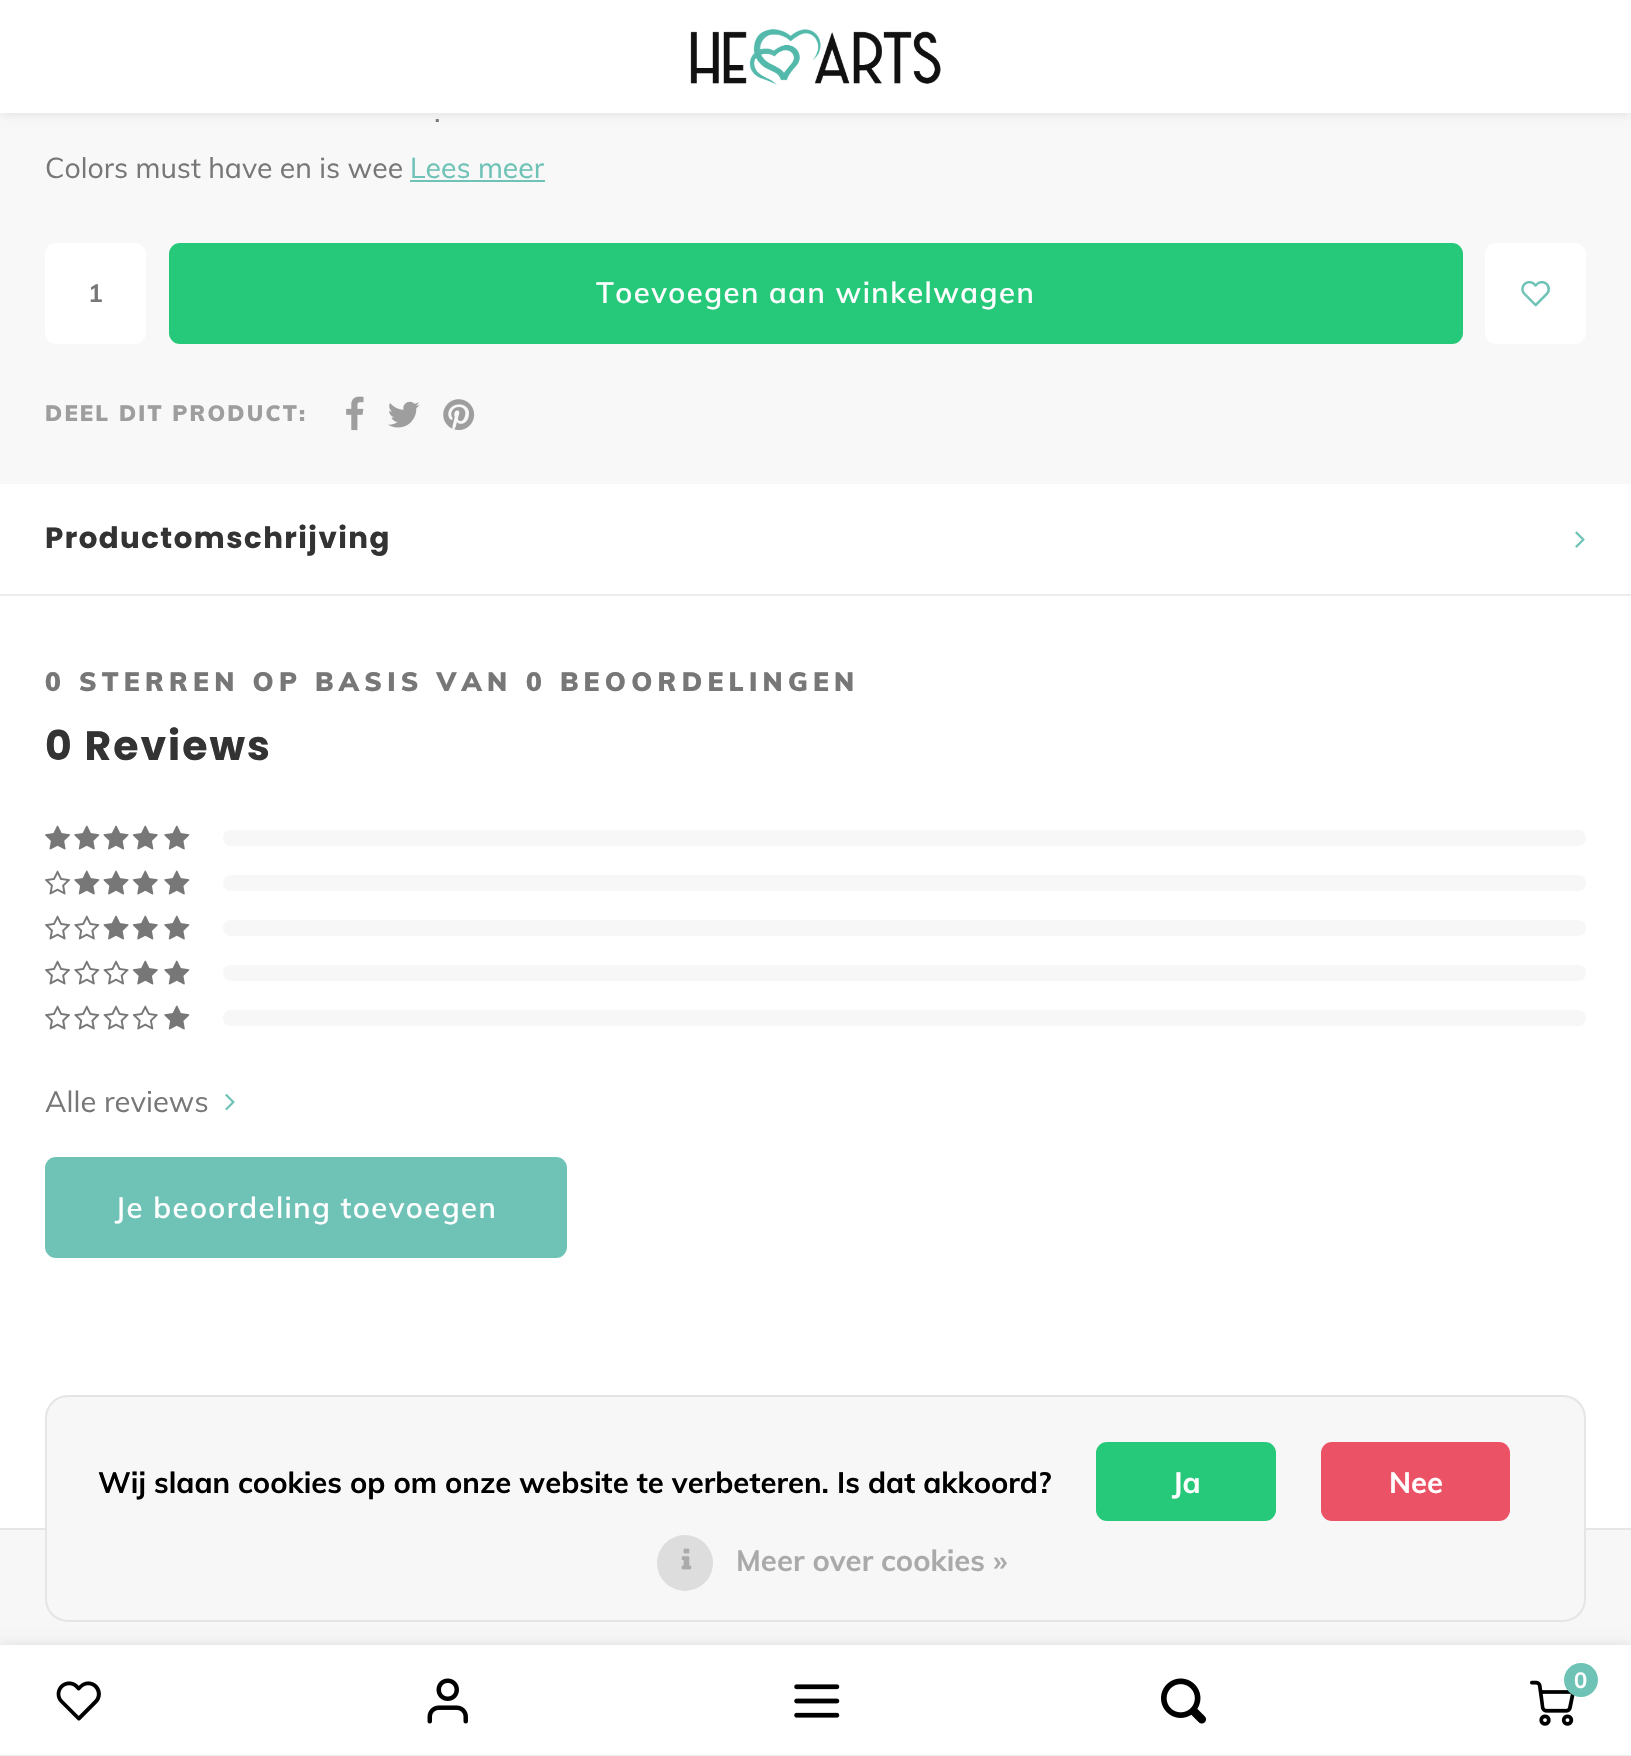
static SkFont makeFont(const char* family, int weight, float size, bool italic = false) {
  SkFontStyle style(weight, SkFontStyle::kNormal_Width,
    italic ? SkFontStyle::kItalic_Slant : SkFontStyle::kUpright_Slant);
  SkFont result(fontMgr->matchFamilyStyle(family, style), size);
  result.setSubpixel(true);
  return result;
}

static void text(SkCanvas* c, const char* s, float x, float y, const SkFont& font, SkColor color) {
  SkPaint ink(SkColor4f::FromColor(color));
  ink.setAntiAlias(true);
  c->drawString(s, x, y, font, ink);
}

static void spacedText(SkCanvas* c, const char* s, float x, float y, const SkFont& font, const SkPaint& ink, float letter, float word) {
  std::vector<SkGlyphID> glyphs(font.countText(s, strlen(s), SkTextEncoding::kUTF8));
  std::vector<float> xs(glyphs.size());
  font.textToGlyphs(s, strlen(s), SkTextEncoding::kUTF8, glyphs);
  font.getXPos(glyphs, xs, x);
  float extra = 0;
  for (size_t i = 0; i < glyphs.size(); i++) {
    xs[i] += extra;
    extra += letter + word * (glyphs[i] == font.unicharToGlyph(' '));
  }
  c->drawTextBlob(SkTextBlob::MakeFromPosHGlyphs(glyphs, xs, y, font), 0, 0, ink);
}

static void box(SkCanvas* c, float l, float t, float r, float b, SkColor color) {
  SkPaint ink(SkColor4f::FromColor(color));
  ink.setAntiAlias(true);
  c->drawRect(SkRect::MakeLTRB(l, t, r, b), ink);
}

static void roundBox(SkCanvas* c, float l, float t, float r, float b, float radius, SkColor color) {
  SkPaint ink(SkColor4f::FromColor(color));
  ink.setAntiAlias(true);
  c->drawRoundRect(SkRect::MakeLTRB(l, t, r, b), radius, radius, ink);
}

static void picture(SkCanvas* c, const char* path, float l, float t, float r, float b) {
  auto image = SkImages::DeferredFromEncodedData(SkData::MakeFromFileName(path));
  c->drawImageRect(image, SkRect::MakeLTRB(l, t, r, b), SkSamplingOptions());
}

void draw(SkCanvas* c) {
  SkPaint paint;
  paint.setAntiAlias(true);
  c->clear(0xffffffff);
  box(c, 0, 113, 1631, 484, 0xfff8f8f8);
  paint.setColor(0x14000000);
  paint.setMaskFilter(SkMaskFilter::MakeBlur(kNormal_SkBlurStyle, 4.5f));
  c->drawRect(SkRect::MakeLTRB(0, 2, 1631, 115), paint);
  paint.setMaskFilter(nullptr);
  box(c, 0, 0, 1631, 113, 0xffffffff);
  picture(c, "img_01.png", 690, 29, 941, 85);
  SkFont face1 = makeFont("Muli", 400, 28.4f);
  text(c, ".", 434, 122, face1, 0xff777777);
  text(c, "Colors must have en is wee", 45, 178, face1, 0xff777777);
  text(c, "Lees meer", 410, 178, face1, 0xff6ec2b6);
  box(c, 410, 180, 545, 182, 0xff6ec2b6);
  roundBox(c, 45, 243, 146, 344, 11, 0xffffffff);
  SkFont face2 = makeFont("Muli", 700, 25);
  paint.setColor(0xff777777);
  spacedText(c, "1", 88, 302, face2, paint, 1, 0);
  roundBox(c, 169, 243, 1463, 344, 11, 0xff26c879);
  SkFont face3 = makeFont("Muli", 600, 29.25f);
  paint.setColor(0xffffffff);
  spacedText(c, "Toevoegen aan winkelwagen", 596, 303, face3, paint, 1.45f, 0);
  roundBox(c, 1485, 243, 1586, 344, 11, 0xffffffff);
  picture(c, "img_02.png", 1521, 280, 1550, 307);
  SkFont face4 = makeFont("Muli", 900, 22);
  paint.setColor(0xff9e9e9e);
  spacedText(c, "DEEL DIT PRODUCT:", 45, 421, face4, paint, 2.2f, 0);
  picture(c, "img_03.png", 346, 396, 364, 431);
  picture(c, "img_04.png", 388, 401, 420, 428);
  picture(c, "img_05.png", 443, 399, 475, 431);
  box(c, 0, 594, 1631, 596, 0xffededed);
  SkFont face5 = makeFont("Poppins", 700, 29.25f);
  paint.setColor(0xff333333);
  spacedText(c, "Productomschrijving", 45, 548, face5, paint, 1.45f, 0);
  picture(c, "img_06.png", 1575, 531, 1585, 548);
  SkFont face6 = makeFont("Muli", 900, 26.3f);
  paint.setColor(0xff777777);
  spacedText(c, "0 STERREN OP BASIS VAN", 45, 691, face6, paint, 5.25f, 0);
  spacedText(c, "0 BEOORDELINGEN", 526, 691, face6, paint, 5.25f, 0);
  SkFont face7 = makeFont("Poppins", 700, 41);
  paint.setColor(0xff333333);
  spacedText(c, "0 Reviews", 45, 760, face7, paint, 2, 0);
  picture(c, "img_07.png", 45, 825, 70, 850);
  picture(c, "img_08.png", 74, 825, 100, 850);
  picture(c, "img_09.png", 103, 825, 129, 850);
  picture(c, "img_10.png", 132, 825, 158, 850);
  picture(c, "img_08.png", 164, 825, 190, 850);
  roundBox(c, 223, 830, 1586, 846, 8, 0xfff7f7f7);
  picture(c, "img_11.png", 45, 870, 70, 895);
  picture(c, "img_08.png", 74, 870, 100, 895);
  picture(c, "img_09.png", 103, 870, 129, 895);
  picture(c, "img_10.png", 132, 870, 158, 895);
  picture(c, "img_08.png", 164, 870, 190, 895);
  roundBox(c, 223, 875, 1586, 891, 8, 0xfff7f7f7);
  picture(c, "img_11.png", 45, 915, 70, 940);
  picture(c, "img_12.png", 74, 915, 100, 940);
  picture(c, "img_09.png", 103, 915, 129, 940);
  picture(c, "img_10.png", 132, 915, 158, 940);
  picture(c, "img_08.png", 164, 915, 190, 940);
  roundBox(c, 223, 920, 1586, 936, 8, 0xfff7f7f7);
  picture(c, "img_11.png", 45, 960, 70, 985);
  picture(c, "img_12.png", 74, 960, 100, 985);
  picture(c, "img_13.png", 103, 960, 129, 985);
  picture(c, "img_10.png", 132, 960, 158, 985);
  picture(c, "img_08.png", 164, 960, 190, 985);
  roundBox(c, 223, 965, 1586, 981, 8, 0xfff7f7f7);
  picture(c, "img_11.png", 45, 1005, 70, 1030);
  picture(c, "img_12.png", 74, 1005, 100, 1030);
  picture(c, "img_13.png", 103, 1005, 129, 1030);
  picture(c, "img_14.png", 132, 1005, 158, 1030);
  picture(c, "img_08.png", 164, 1005, 190, 1030);
  roundBox(c, 223, 1010, 1586, 1026, 8, 0xfff7f7f7);
  SkFont face8 = makeFont("Muli", 400, 29.25f);
  text(c, "Alle reviews", 45, 1112, face8, 0xff777777);
  picture(c, "img_15.png", 225, 1094, 235, 1111);
  roundBox(c, 45, 1157, 567, 1258, 11, 0xff6ec2b6);
  paint.setColor(0xffffffff);
  spacedText(c, "Je beoordeling toevoegen", 115, 1218, face3, paint, 1.45f, 0);
  box(c, 0, 1530, 1631, 1645, 0xfff7f7f7);
  box(c, 0, 1528, 1631, 1530, 0xffe6e6e6);
  roundBox(c, 45, 1395, 1586, 1622, 23, 0xfff7f7f7);
  paint.setStyle(SkPaint::kStroke_Style);
  paint.setStrokeWidth(2);
  paint.setColor(0x12000000);
  c->drawRoundRect(SkRect::MakeLTRB(46, 1396, 1585, 1621), 22, 22, paint);
  SkFont face9 = makeFont("Muli", 700, 29.25f);
  text(c, "Wij slaan cookies op om onze website te verbeteren. Is dat akkoord?", 98, 1493, face9, 0xff000000);
  roundBox(c, 1096, 1442, 1276, 1521, 11, 0xff26c879);
  text(c, "Ja", 1172, 1493, face9, 0xffffffff);
  roundBox(c, 1321, 1442, 1510, 1521, 11, 0xffeb5265);
  text(c, "Nee", 1389, 1493, face9, 0xffffffff);
  paint.setStyle(SkPaint::kFill_Style);
  paint.setColor(0xffdddddd);
  c->drawCircle(685, 1563, 28, paint);
  picture(c, "img_16.png", 681, 1548, 692, 1570);
  text(c, "Meer over cookies »", 736, 1571, face9, 0xffaaaaaa);
  paint.setColor(0x14000000);
  paint.setMaskFilter(SkMaskFilter::MakeBlur(kNormal_SkBlurStyle, 5.5f));
  c->drawRect(SkRect::MakeLTRB(0, 1643, 1631, 1755), paint);
  paint.setMaskFilter(nullptr);
  box(c, 0, 1645, 1631, 1755, 0xffffffff);
  box(c, 0, 1755, 1631, 1756, 0xffededed);
  picture(c, "img_17.png", 56, 1681, 101, 1721);
  picture(c, "img_18.png", 427, 1678, 468, 1724);
  picture(c, "img_19.png", 794, 1684, 840, 1718);
  picture(c, "img_20.png", 1161, 1678, 1206, 1724);
  picture(c, "img_21.png", 1530, 1680, 1575, 1726);
  paint.setColor(0xff6ec2b6);
  c->drawCircle(1581, 1680, 17, paint);
  SkFont face10 = makeFont("Muli", 700, 22);
  text(c, "0", 1574, 1688, face10, 0xffffffff);
}
